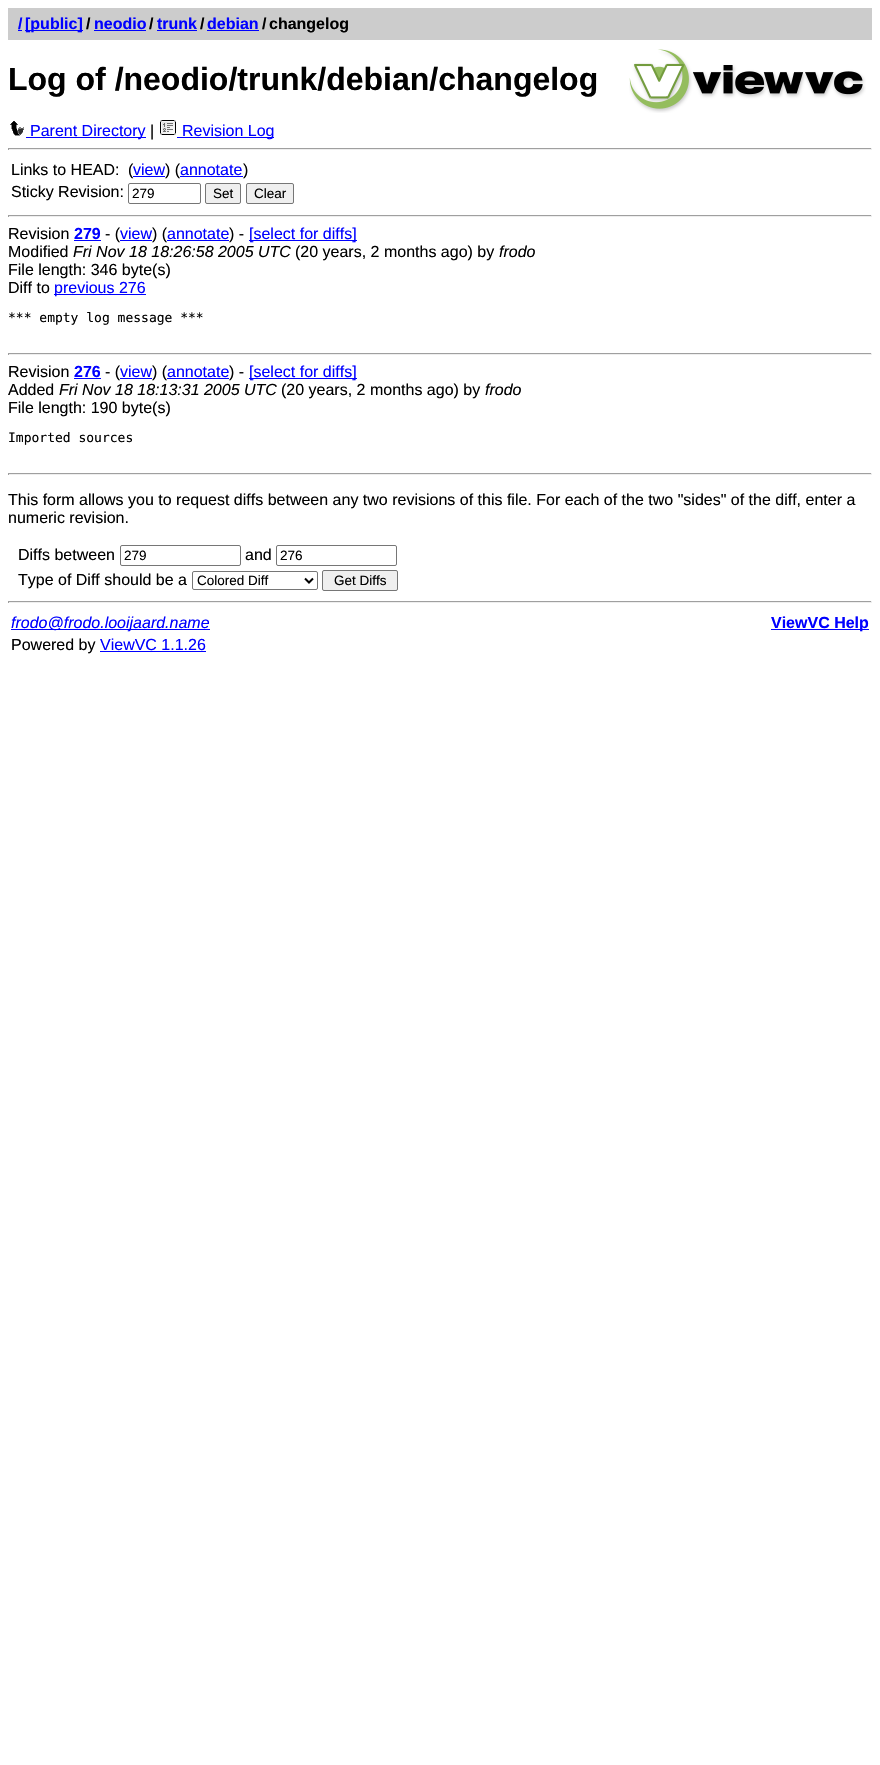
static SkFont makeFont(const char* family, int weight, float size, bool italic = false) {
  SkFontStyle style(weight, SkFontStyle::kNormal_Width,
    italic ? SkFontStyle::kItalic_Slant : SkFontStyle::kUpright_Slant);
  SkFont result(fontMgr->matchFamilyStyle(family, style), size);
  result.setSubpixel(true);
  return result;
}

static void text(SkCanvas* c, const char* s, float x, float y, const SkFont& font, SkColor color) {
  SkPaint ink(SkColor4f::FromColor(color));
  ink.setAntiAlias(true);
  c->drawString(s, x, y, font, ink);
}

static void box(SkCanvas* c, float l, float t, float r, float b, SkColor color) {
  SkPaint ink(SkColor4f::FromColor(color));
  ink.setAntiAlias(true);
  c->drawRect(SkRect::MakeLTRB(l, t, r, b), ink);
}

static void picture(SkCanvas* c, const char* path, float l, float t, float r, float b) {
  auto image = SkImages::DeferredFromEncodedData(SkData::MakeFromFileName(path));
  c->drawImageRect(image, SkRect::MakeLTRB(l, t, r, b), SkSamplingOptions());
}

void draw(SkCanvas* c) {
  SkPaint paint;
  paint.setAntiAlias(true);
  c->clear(0xffffffff);
  box(c, 8, 8, 872, 40, 0xffcccccc);
  SkFont face1 = makeFont("Liberation Sans", 700, 16);
  text(c, "/", 18, 29, face1, 0xff0000ff);
  box(c, 18, 30, 22, 31, 0xff0000ff);
  box(c, 25, 30, 83, 31, 0xff0000ff);
  text(c, "[public]", 25, 29, face1, 0xff0000ff);
  text(c, "/", 86, 29, face1, 0xff000000);
  text(c, "neodio", 94, 29, face1, 0xff0000ff);
  box(c, 94, 30, 146, 31, 0xff0000ff);
  text(c, "/", 149, 29, face1, 0xff000000);
  text(c, "trunk", 157, 29, face1, 0xff0000ff);
  box(c, 157, 30, 197, 31, 0xff0000ff);
  text(c, "/", 200, 29, face1, 0xff000000);
  text(c, "debian", 207, 29, face1, 0xff0000ff);
  box(c, 207, 30, 259, 31, 0xff0000ff);
  text(c, "/", 262, 29, face1, 0xff000000);
  text(c, "changelog", 269, 29, face1, 0xff000000);
  SkFont face2 = makeFont("Liberation Sans", 700, 32);
  text(c, "Log of /neodio/trunk/debian/changelog", 8, 90, face2, 0xff000000);
  picture(c, "img_01.png", 629, 49, 866, 113);
  picture(c, "img_02.png", 10, 121, 24, 136);
  box(c, 26, 137, 146, 138, 0xff0000ff);
  SkFont face3 = makeFont("Liberation Sans", 400, 16);
  text(c, "Parent Directory", 30, 136, face3, 0xff0000ff);
  text(c, "|", 150, 136, face3, 0xff000000);
  picture(c, "img_03.png", 160, 120, 176, 135);
  box(c, 177, 137, 274, 138, 0xff0000ff);
  text(c, "Revision Log", 182, 136, face3, 0xff0000ff);
  box(c, 8, 148, 872, 149, 0xff9f9f9f);
  box(c, 871, 148, 872, 150, 0xffeeeeee);
  box(c, 8, 149, 872, 150, 0xffeeeeee);
  box(c, 8, 148, 9, 150, 0xff9f9f9f);
  text(c, "Links to HEAD:", 11, 175, face3, 0xff000000);
  text(c, "(", 128, 175, face3, 0xff000000);
  text(c, "view", 133, 175, face3, 0xff0000ff);
  box(c, 133, 176, 165, 177, 0xff0000ff);
  text(c, ") (", 165, 175, face3, 0xff000000);
  text(c, "annotate", 180, 175, face3, 0xff0000ff);
  box(c, 180, 176, 243, 177, 0xff0000ff);
  text(c, ")", 243, 175, face3, 0xff000000);
  text(c, "Sticky Revision:", 11, 197, face3, 0xff000000);
  paint.setStyle(SkPaint::kStroke_Style);
  paint.setStrokeWidth(1);
  paint.setColor(0xff767676);
  c->drawRoundRect(SkRect::MakeLTRB(128.5f, 183.5f, 200.5f, 203.5f), 1.5f, 1.5f, paint);
  SkFont face4 = makeFont("Liberation Sans", 400, 13.5f);
  text(c, "279", 132, 198, face4, 0xff000000);
  paint.setStyle(SkPaint::kFill_Style);
  paint.setColor(0xffefefef);
  c->drawRoundRect(SkRect::MakeLTRB(205.5f, 183.5f, 240.5f, 203.5f), 1.5f, 1.5f, paint);
  paint.setStyle(SkPaint::kStroke_Style);
  paint.setColor(0xff767676);
  c->drawRoundRect(SkRect::MakeLTRB(205.5f, 183.5f, 240.5f, 203.5f), 1.5f, 1.5f, paint);
  text(c, "Set", 213, 198, face4, 0xff000000);
  paint.setStyle(SkPaint::kFill_Style);
  paint.setColor(0xffefefef);
  c->drawRoundRect(SkRect::MakeLTRB(246.5f, 183.5f, 293.5f, 203.5f), 1.5f, 1.5f, paint);
  paint.setStyle(SkPaint::kStroke_Style);
  paint.setColor(0xff767676);
  c->drawRoundRect(SkRect::MakeLTRB(246.5f, 183.5f, 293.5f, 203.5f), 1.5f, 1.5f, paint);
  text(c, "Clear", 254, 198, face4, 0xff000000);
  box(c, 8, 215, 872, 216, 0xff9f9f9f);
  box(c, 871, 215, 872, 217, 0xffeeeeee);
  box(c, 8, 216, 872, 217, 0xffeeeeee);
  box(c, 8, 215, 9, 217, 0xff9f9f9f);
  text(c, "Revision", 8, 239, face3, 0xff000000);
  text(c, "279", 74, 239, face1, 0xff0000ff);
  box(c, 74, 240, 101, 241, 0xff0000ff);
  text(c, "- (", 105, 239, face3, 0xff000000);
  text(c, "view", 120, 239, face3, 0xff0000ff);
  box(c, 120, 240, 152, 241, 0xff0000ff);
  text(c, ") (", 152, 239, face3, 0xff000000);
  text(c, "annotate", 167, 239, face3, 0xff0000ff);
  box(c, 167, 240, 229, 241, 0xff0000ff);
  text(c, ") -", 229, 239, face3, 0xff000000);
  box(c, 249, 240, 357, 241, 0xff0000ff);
  text(c, "[select for diffs]", 249, 239, face3, 0xff0000ff);
  text(c, "Modified", 8, 257, face3, 0xff000000);
  SkFont face5 = makeFont("Liberation Sans", 400, 16, true);
  text(c, "Fri Nov 18 18:26:58 2005 UTC", 73, 257, face5, 0xff000000);
  text(c, "(20 years, 2 months ago) by", 295, 257, face3, 0xff000000);
  text(c, "frodo", 499, 257, face5, 0xff000000);
  text(c, "File length: 346 byte(s)", 8, 275, face3, 0xff000000);
  text(c, "Diff to", 8, 293, face3, 0xff000000);
  box(c, 54, 294, 146, 295, 0xff0000ff);
  text(c, "previous 276", 54, 293, face3, 0xff0000ff);
  SkFont face6 = makeFont("DejaVu Sans Mono", 400, 13);
  text(c, "*** empty log message ***", 8, 322, face6, 0xff000000);
  box(c, 8, 353, 872, 354, 0xff9f9f9f);
  box(c, 871, 353, 872, 355, 0xffeeeeee);
  box(c, 8, 354, 872, 355, 0xffeeeeee);
  box(c, 8, 353, 9, 355, 0xff9f9f9f);
  text(c, "Revision", 8, 377, face3, 0xff000000);
  text(c, "276", 74, 377, face1, 0xff0000ff);
  box(c, 74, 378, 101, 379, 0xff0000ff);
  text(c, "- (", 105, 377, face3, 0xff000000);
  text(c, "view", 120, 377, face3, 0xff0000ff);
  box(c, 120, 378, 152, 379, 0xff0000ff);
  text(c, ") (", 152, 377, face3, 0xff000000);
  text(c, "annotate", 167, 377, face3, 0xff0000ff);
  box(c, 167, 378, 229, 379, 0xff0000ff);
  text(c, ") -", 229, 377, face3, 0xff000000);
  box(c, 249, 378, 357, 379, 0xff0000ff);
  text(c, "[select for diffs]", 249, 377, face3, 0xff0000ff);
  text(c, "Added", 8, 395, face3, 0xff000000);
  text(c, "Fri Nov 18 18:13:31 2005 UTC", 59, 395, face5, 0xff000000);
  text(c, "(20 years, 2 months ago) by", 281, 395, face3, 0xff000000);
  text(c, "frodo", 485, 395, face5, 0xff000000);
  text(c, "File length: 190 byte(s)", 8, 413, face3, 0xff000000);
  text(c, "Imported sources", 8, 442, face6, 0xff000000);
  box(c, 8, 473, 872, 474, 0xff9f9f9f);
  box(c, 871, 473, 872, 475, 0xffeeeeee);
  box(c, 8, 474, 872, 475, 0xffeeeeee);
  box(c, 8, 473, 9, 475, 0xff9f9f9f);
  text(c, "This form allows you to request diffs between any two revisions of this file. For each of the two \"sides\" of the diff, enter a", 8, 505, face3, 0xff000000);
  text(c, "numeric revision.", 8, 523, face3, 0xff000000);
  text(c, "Diffs between", 18, 560, face3, 0xff000000);
  c->drawRoundRect(SkRect::MakeLTRB(120.5f, 545.5f, 240.5f, 565.5f), 1.5f, 1.5f, paint);
  text(c, "279", 124, 560, face4, 0xff000000);
  text(c, "and", 245, 560, face3, 0xff000000);
  c->drawRoundRect(SkRect::MakeLTRB(276.5f, 545.5f, 396.5f, 565.5f), 1.5f, 1.5f, paint);
  text(c, "276", 280, 560, face4, 0xff000000);
  text(c, "Type of Diff should be a", 18, 585, face3, 0xff000000);
  c->drawRoundRect(SkRect::MakeLTRB(192.5f, 571.5f, 317.5f, 589.5f), 1.5f, 1.5f, paint);
  paint.setStrokeWidth(2);
  paint.setColor(0xff000000);
  c->drawPath(SkPathBuilder().moveTo(305, 578.5f).lineTo(309, 582.5f).lineTo(313, 578.5f).detach(), paint);
  text(c, "Colored Diff", 197, 585, face4, 0xff000000);
  paint.setStyle(SkPaint::kFill_Style);
  paint.setColor(0xffefefef);
  c->drawRoundRect(SkRect::MakeLTRB(322.5f, 570.5f, 397.5f, 590.5f), 1.5f, 1.5f, paint);
  paint.setStyle(SkPaint::kStroke_Style);
  paint.setStrokeWidth(1);
  paint.setColor(0xff767676);
  c->drawRoundRect(SkRect::MakeLTRB(322.5f, 570.5f, 397.5f, 590.5f), 1.5f, 1.5f, paint);
  text(c, "Get Diffs", 334, 585, face4, 0xff000000);
  box(c, 8, 601, 872, 602, 0xff9f9f9f);
  box(c, 871, 601, 872, 603, 0xffeeeeee);
  box(c, 8, 602, 872, 603, 0xffeeeeee);
  box(c, 8, 601, 9, 603, 0xff9f9f9f);
  box(c, 11, 629, 210, 630, 0xff0000ff);
  text(c, "frodo@frodo.looijaard.name", 11, 628, face5, 0xff0000ff);
  box(c, 771, 629, 869, 630, 0xff0000ff);
  text(c, "ViewVC Help", 771, 628, face1, 0xff0000ff);
  text(c, "Powered by", 11, 650, face3, 0xff000000);
  text(c, "ViewVC 1.1.26", 100, 650, face3, 0xff0000ff);
  box(c, 100, 651, 206, 652, 0xff0000ff);
}
